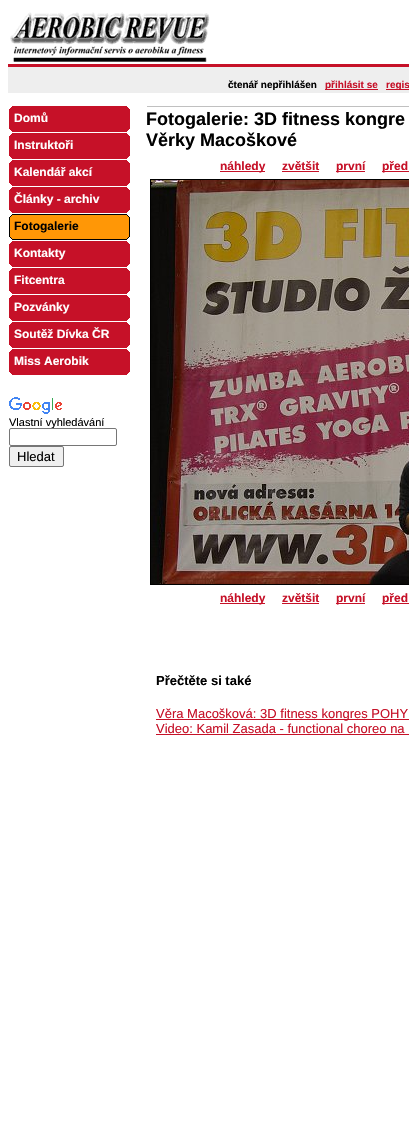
static SkFont makeFont(const char* family, int weight, float size, bool italic = false) {
  SkFontStyle style(weight, SkFontStyle::kNormal_Width,
    italic ? SkFontStyle::kItalic_Slant : SkFontStyle::kUpright_Slant);
  SkFont result(fontMgr->matchFamilyStyle(family, style), size);
  result.setSubpixel(true);
  return result;
}

static void text(SkCanvas* c, const char* s, float x, float y, const SkFont& font, SkColor color) {
  SkPaint ink(SkColor4f::FromColor(color));
  ink.setAntiAlias(true);
  c->drawString(s, x, y, font, ink);
}

static void box(SkCanvas* c, float l, float t, float r, float b, SkColor color) {
  SkPaint ink(SkColor4f::FromColor(color));
  ink.setAntiAlias(true);
  c->drawRect(SkRect::MakeLTRB(l, t, r, b), ink);
}

static void picture(SkCanvas* c, const char* path, float l, float t, float r, float b) {
  auto image = SkImages::DeferredFromEncodedData(SkData::MakeFromFileName(path));
  c->drawImageRect(image, SkRect::MakeLTRB(l, t, r, b), SkSamplingOptions());
}

void draw(SkCanvas* c) {
  SkPaint paint;
  paint.setAntiAlias(true);
  c->clear(0xffffffff);
  picture(c, "img_01.png", 10, 12, 210, 62);
  picture(c, "img_02.png", 8, 64, 409, 93);
  SkFont face1 = makeFont("Liberation Sans", 700, 10);
  text(c, "čtenář nepřihlášen", 228, 88, face1, 0xff000000);
  box(c, 325, 89, 378, 90, 0xffc61128);
  text(c, "přihlásit se", 325, 88, face1, 0xffc61128);
  box(c, 386, 89, 409, 90, 0xffc61128);
  text(c, "regis", 386, 88, face1, 0xffc61128);
  picture(c, "img_03.png", 9, 106, 130, 132);
  SkFont face2 = makeFont("Liberation Sans", 700, 12);
  text(c, "Domů", 14, 122, face2, 0xffffffff);
  picture(c, "img_03.png", 9, 133, 130, 159);
  text(c, "Instruktoři", 14, 149, face2, 0xffffffff);
  picture(c, "img_03.png", 9, 160, 130, 186);
  text(c, "Kalendář akcí", 14, 176, face2, 0xffffffff);
  picture(c, "img_03.png", 9, 187, 130, 213);
  text(c, "Články - archiv", 14, 203, face2, 0xffffffff);
  picture(c, "img_04.png", 9, 214, 130, 240);
  text(c, "Fotogalerie", 14, 230, face2, 0xff000000);
  picture(c, "img_03.png", 9, 241, 130, 267);
  text(c, "Kontakty", 14, 257, face2, 0xffffffff);
  picture(c, "img_03.png", 9, 268, 130, 294);
  text(c, "Fitcentra", 14, 284, face2, 0xffffffff);
  picture(c, "img_03.png", 9, 295, 130, 321);
  text(c, "Pozvánky", 14, 311, face2, 0xffffffff);
  picture(c, "img_03.png", 9, 322, 130, 348);
  text(c, "Soutěž Dívka ČR", 14, 338, face2, 0xffffffff);
  picture(c, "img_03.png", 9, 349, 130, 375);
  text(c, "Miss Aerobik", 14, 365, face2, 0xffffffff);
  picture(c, "img_05.png", 9, 397, 62, 414);
  SkFont face3 = makeFont("Liberation Sans", 400, 11);
  text(c, "Vlastní vyhledávání", 9, 426, face3, 0xff000000);
  paint.setColor(0xffffffff);
  c->drawRoundRect(SkRect::MakeLTRB(9.5f, 428.5f, 116.5f, 445.5f), 1.5f, 1.5f, paint);
  paint.setStyle(SkPaint::kStroke_Style);
  paint.setStrokeWidth(1);
  paint.setColor(0xff767676);
  c->drawRoundRect(SkRect::MakeLTRB(9.5f, 428.5f, 116.5f, 445.5f), 1.5f, 1.5f, paint);
  paint.setStyle(SkPaint::kFill_Style);
  paint.setColor(0xffefefef);
  c->drawRoundRect(SkRect::MakeLTRB(9.5f, 446.5f, 63.5f, 466.5f), 1.5f, 1.5f, paint);
  paint.setStyle(SkPaint::kStroke_Style);
  paint.setColor(0xff767676);
  c->drawRoundRect(SkRect::MakeLTRB(9.5f, 446.5f, 63.5f, 466.5f), 1.5f, 1.5f, paint);
  SkFont face4 = makeFont("Liberation Sans", 400, 13);
  text(c, "Hledat", 17, 461, face4, 0xff000000);
  box(c, 147, 106, 409, 107, 0xffc0c0c0);
  SkFont face5 = makeFont("Liberation Sans", 700, 18);
  text(c, "Fotogalerie: 3D fitness kongre", 146, 125, face5, 0xff000000);
  text(c, "Věrky Macoškové", 146, 146, face5, 0xff000000);
  box(c, 220, 171, 265, 172, 0xffc61128);
  text(c, "náhledy", 220, 170, face2, 0xffc61128);
  text(c, "zvětšit", 282, 170, face2, 0xffc61128);
  box(c, 282, 171, 319, 172, 0xffc61128);
  box(c, 336, 171, 365, 172, 0xffc61128);
  text(c, "první", 336, 170, face2, 0xffc61128);
  box(c, 382, 171, 409, 172, 0xffc61128);
  text(c, "před", 382, 170, face2, 0xffc61128);
  paint.setColor(0xff000000);
  c->drawRect(SkRect::MakeLTRB(150.5f, 179.5f, 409.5f, 584.5f), paint);
  picture(c, "img_06.png", 151, 180, 409, 584);
  box(c, 220, 603, 265, 604, 0xffc61128);
  text(c, "náhledy", 220, 602, face2, 0xffc61128);
  text(c, "zvětšit", 282, 602, face2, 0xffc61128);
  box(c, 282, 603, 319, 604, 0xffc61128);
  box(c, 336, 603, 365, 604, 0xffc61128);
  text(c, "první", 336, 602, face2, 0xffc61128);
  box(c, 382, 603, 409, 604, 0xffc61128);
  text(c, "před", 382, 602, face2, 0xffc61128);
  SkFont face6 = makeFont("Liberation Sans", 700, 13);
  text(c, "Přečtěte si také", 156, 685, face6, 0xff000000);
  box(c, 156, 719, 409, 720, 0xffc61128);
  text(c, "Věra Macošková: 3D fitness kongres POHY", 156, 718, face4, 0xffc61128);
  text(c, "Video: Kamil Zasada - functional choreo na", 156, 733, face4, 0xffc61128);
  box(c, 156, 734, 409, 735, 0xffc61128);
}
